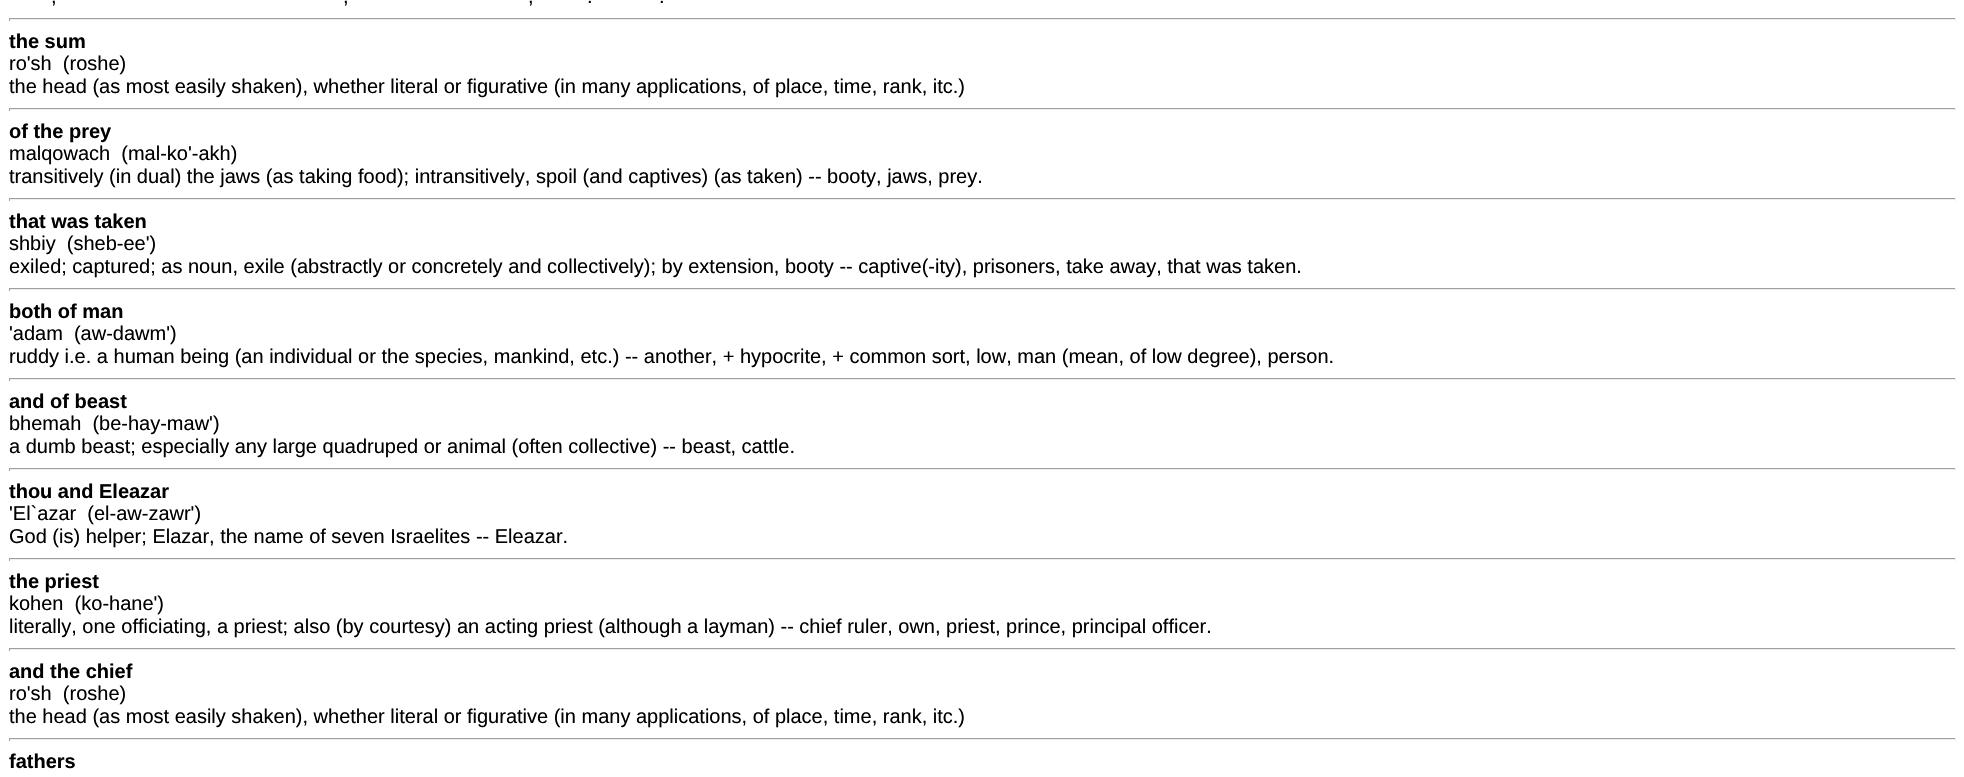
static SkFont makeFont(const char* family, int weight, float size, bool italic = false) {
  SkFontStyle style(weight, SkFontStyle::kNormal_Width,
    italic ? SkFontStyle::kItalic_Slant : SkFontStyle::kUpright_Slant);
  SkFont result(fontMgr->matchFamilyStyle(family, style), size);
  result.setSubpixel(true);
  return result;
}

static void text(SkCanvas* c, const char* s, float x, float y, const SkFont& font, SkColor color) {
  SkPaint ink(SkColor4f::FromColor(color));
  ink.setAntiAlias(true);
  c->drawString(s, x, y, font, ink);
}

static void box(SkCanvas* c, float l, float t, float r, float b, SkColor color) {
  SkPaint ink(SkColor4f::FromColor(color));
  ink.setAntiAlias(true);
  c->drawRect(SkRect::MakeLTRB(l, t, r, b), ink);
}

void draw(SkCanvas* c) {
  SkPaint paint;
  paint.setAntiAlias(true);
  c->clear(0xffffffff);
  SkFont face1 = makeFont("Liberation Sans", 400, 20);
  text(c, ",", 51, 3, face1, 0xff000000);
  text(c, ",", 343, 3, face1, 0xff000000);
  text(c, ",", 528, 3, face1, 0xff000000);
  text(c, ".", 587, 3, face1, 0xff000000);
  text(c, ".", 659, 3, face1, 0xff000000);
  box(c, 9, 18, 1956, 19, 0xff9f9f9f);
  box(c, 1955, 18, 1956, 21, 0xffeeeeee);
  box(c, 9, 19, 1956, 20, 0xffeeeeee);
  box(c, 9, 18, 10, 21, 0xff9f9f9f);
  SkFont face2 = makeFont("Liberation Sans", 700, 20);
  text(c, "the sum", 9, 48, face2, 0xff000000);
  text(c, "ro'sh  (roshe)", 9, 70, face1, 0xff000000);
  text(c, "the head (as most easily shaken), whether literal or figurative (in many applications, of place, time, rank, itc.)", 9, 93, face1, 0xff000000);
  box(c, 9, 108, 1956, 109, 0xff9f9f9f);
  box(c, 1955, 108, 1956, 111, 0xffeeeeee);
  box(c, 9, 109, 1956, 110, 0xffeeeeee);
  box(c, 9, 108, 10, 111, 0xff9f9f9f);
  text(c, "of the prey", 9, 138, face2, 0xff000000);
  text(c, "malqowach  (mal-ko'-akh)", 9, 160, face1, 0xff000000);
  text(c, "transitively (in dual) the jaws (as taking food); intransitively, spoil (and captives) (as taken) -- booty, jaws, prey.", 9, 183, face1, 0xff000000);
  box(c, 9, 198, 1956, 199, 0xff9f9f9f);
  box(c, 1955, 198, 1956, 201, 0xffeeeeee);
  box(c, 9, 199, 1956, 200, 0xffeeeeee);
  box(c, 9, 198, 10, 201, 0xff9f9f9f);
  text(c, "that was taken", 9, 228, face2, 0xff000000);
  text(c, "shbiy  (sheb-ee')", 9, 250, face1, 0xff000000);
  text(c, "exiled; captured; as noun, exile (abstractly or concretely and collectively); by extension, booty -- captive(-ity), prisoners, take away, that was taken.", 9, 273, face1, 0xff000000);
  box(c, 9, 288, 1956, 289, 0xff9f9f9f);
  box(c, 1955, 288, 1956, 291, 0xffeeeeee);
  box(c, 9, 289, 1956, 290, 0xffeeeeee);
  box(c, 9, 288, 10, 291, 0xff9f9f9f);
  text(c, "both of man", 9, 318, face2, 0xff000000);
  text(c, "'adam  (aw-dawm')", 9, 340, face1, 0xff000000);
  text(c, "ruddy i.e. a human being (an individual or the species, mankind, etc.) -- another, + hypocrite, + common sort, low, man (mean, of low degree), person.", 9, 363, face1, 0xff000000);
  box(c, 9, 378, 1956, 379, 0xff9f9f9f);
  box(c, 1955, 378, 1956, 381, 0xffeeeeee);
  box(c, 9, 379, 1956, 380, 0xffeeeeee);
  box(c, 9, 378, 10, 381, 0xff9f9f9f);
  text(c, "and of beast", 9, 408, face2, 0xff000000);
  text(c, "bhemah  (be-hay-maw')", 9, 430, face1, 0xff000000);
  text(c, "a dumb beast; especially any large quadruped or animal (often collective) -- beast, cattle.", 9, 453, face1, 0xff000000);
  box(c, 9, 468, 1956, 469, 0xff9f9f9f);
  box(c, 1955, 468, 1956, 471, 0xffeeeeee);
  box(c, 9, 469, 1956, 470, 0xffeeeeee);
  box(c, 9, 468, 10, 471, 0xff9f9f9f);
  text(c, "thou and Eleazar", 9, 498, face2, 0xff000000);
  text(c, "'El`azar  (el-aw-zawr')", 9, 520, face1, 0xff000000);
  text(c, "God (is) helper; Elazar, the name of seven Israelites -- Eleazar.", 9, 543, face1, 0xff000000);
  box(c, 9, 558, 1956, 559, 0xff9f9f9f);
  box(c, 1955, 558, 1956, 561, 0xffeeeeee);
  box(c, 9, 559, 1956, 560, 0xffeeeeee);
  box(c, 9, 558, 10, 561, 0xff9f9f9f);
  text(c, "the priest", 9, 588, face2, 0xff000000);
  text(c, "kohen  (ko-hane')", 9, 610, face1, 0xff000000);
  text(c, "literally, one officiating, a priest; also (by courtesy) an acting priest (although a layman) -- chief ruler, own, priest, prince, principal officer.", 9, 633, face1, 0xff000000);
  box(c, 9, 648, 1956, 649, 0xff9f9f9f);
  box(c, 1955, 648, 1956, 651, 0xffeeeeee);
  box(c, 9, 649, 1956, 650, 0xffeeeeee);
  box(c, 9, 648, 10, 651, 0xff9f9f9f);
  text(c, "and the chief", 9, 678, face2, 0xff000000);
  text(c, "ro'sh  (roshe)", 9, 700, face1, 0xff000000);
  text(c, "the head (as most easily shaken), whether literal or figurative (in many applications, of place, time, rank, itc.)", 9, 723, face1, 0xff000000);
  box(c, 9, 738, 1956, 739, 0xff9f9f9f);
  box(c, 1955, 738, 1956, 741, 0xffeeeeee);
  box(c, 9, 739, 1956, 740, 0xffeeeeee);
  box(c, 9, 738, 10, 741, 0xff9f9f9f);
  text(c, "fathers", 9, 768, face2, 0xff000000);
}
